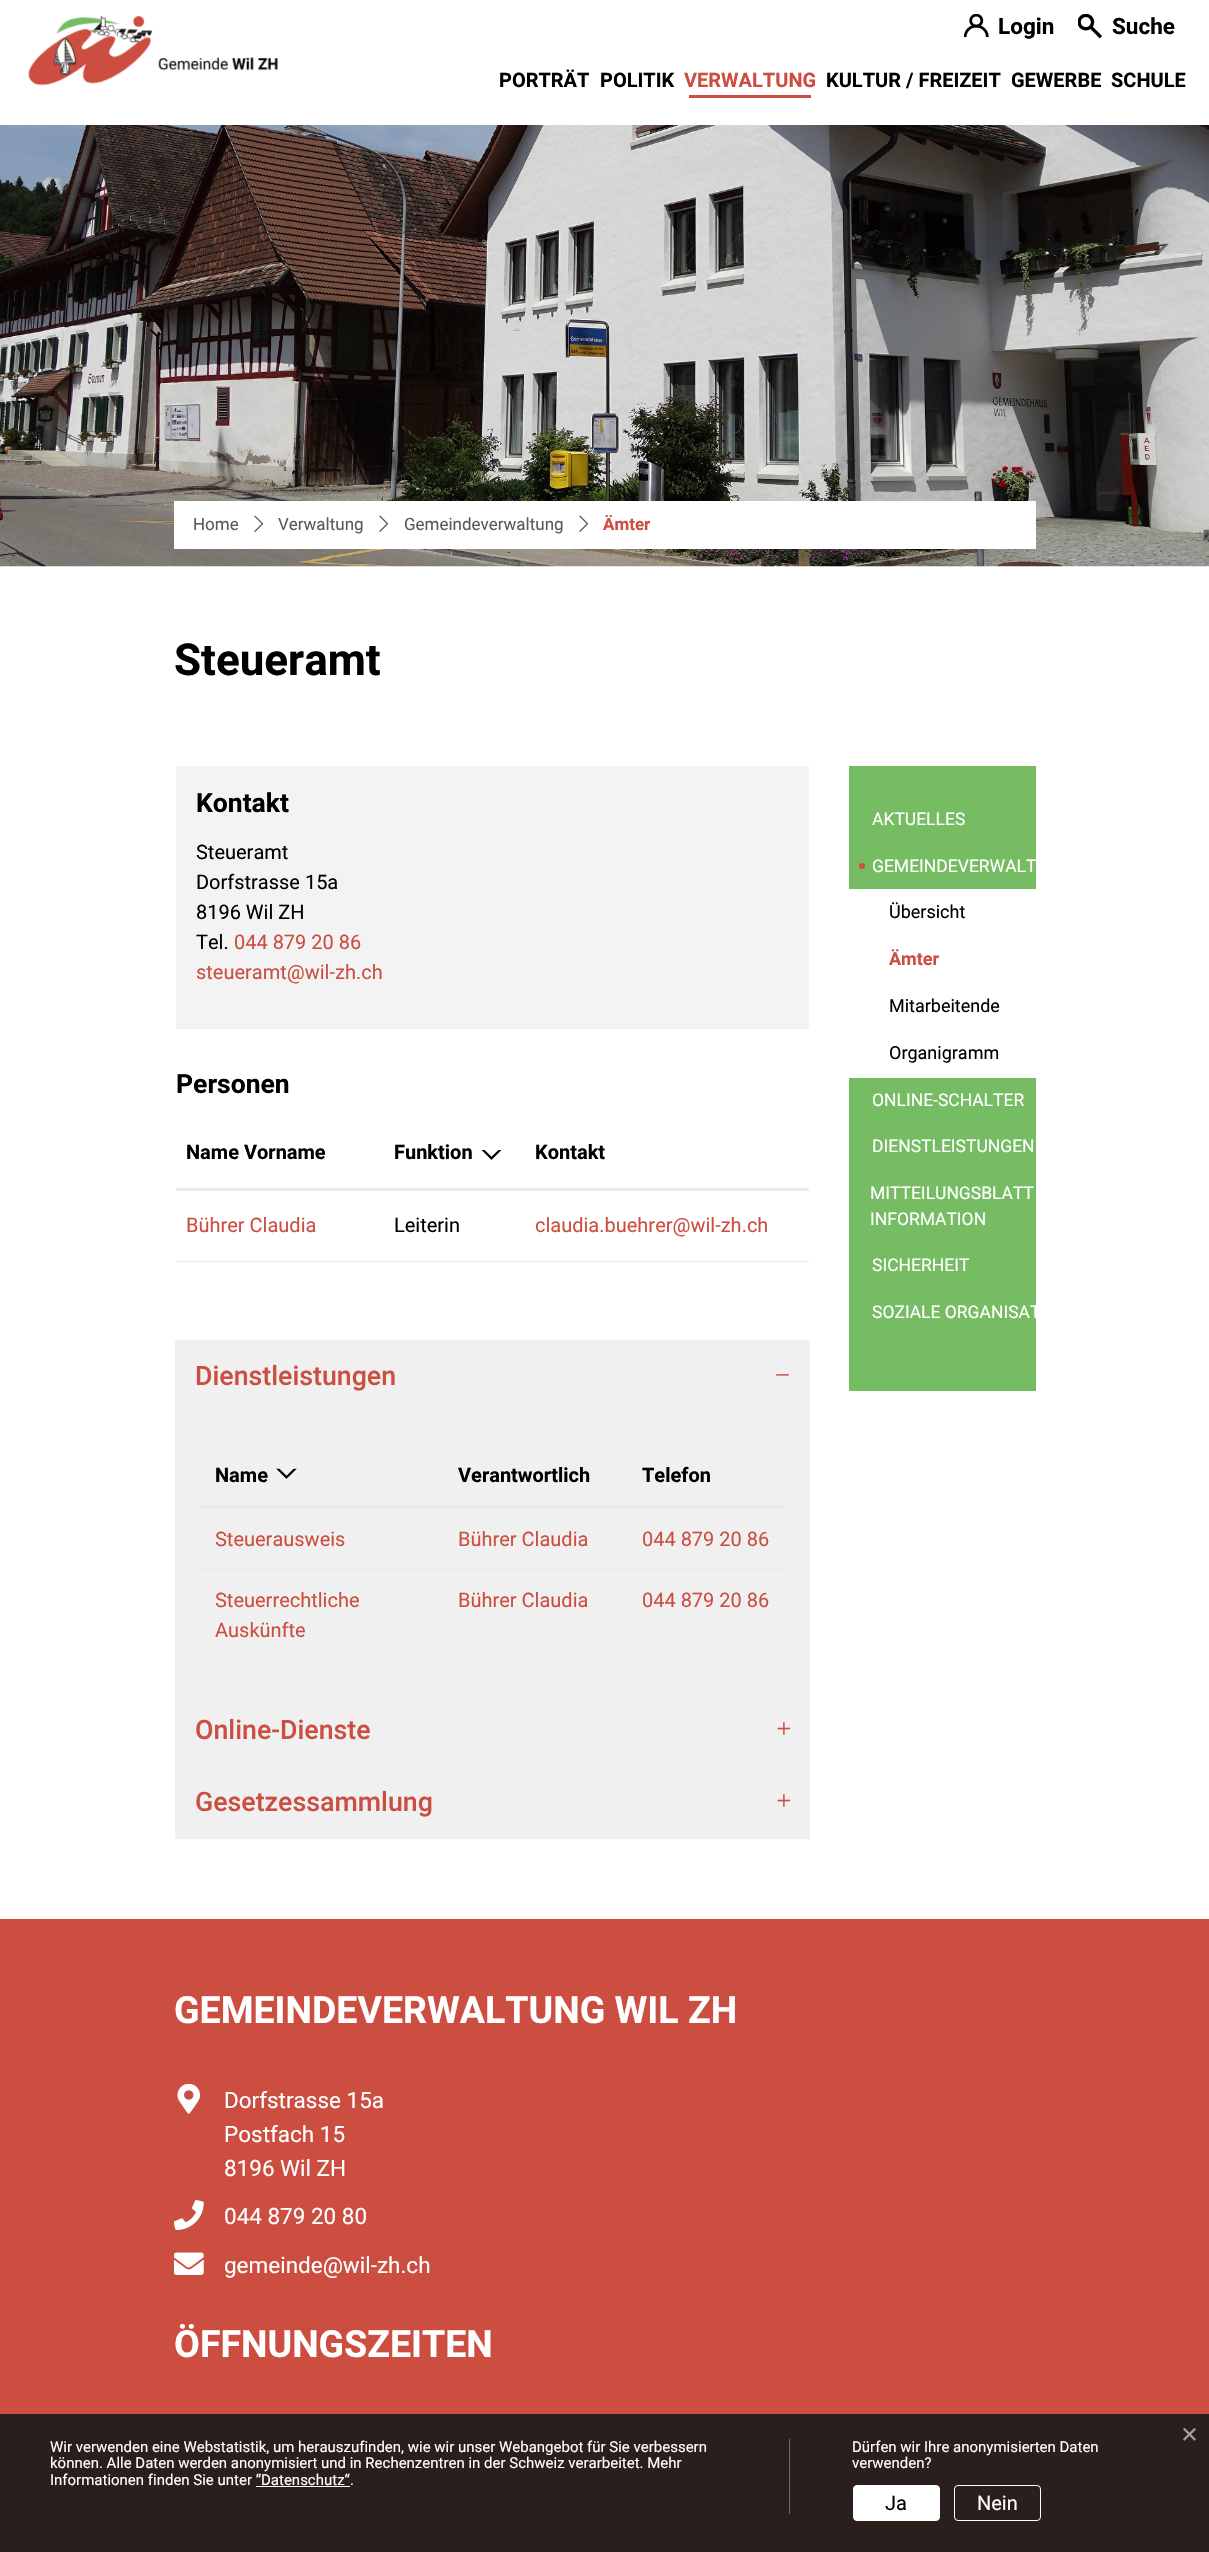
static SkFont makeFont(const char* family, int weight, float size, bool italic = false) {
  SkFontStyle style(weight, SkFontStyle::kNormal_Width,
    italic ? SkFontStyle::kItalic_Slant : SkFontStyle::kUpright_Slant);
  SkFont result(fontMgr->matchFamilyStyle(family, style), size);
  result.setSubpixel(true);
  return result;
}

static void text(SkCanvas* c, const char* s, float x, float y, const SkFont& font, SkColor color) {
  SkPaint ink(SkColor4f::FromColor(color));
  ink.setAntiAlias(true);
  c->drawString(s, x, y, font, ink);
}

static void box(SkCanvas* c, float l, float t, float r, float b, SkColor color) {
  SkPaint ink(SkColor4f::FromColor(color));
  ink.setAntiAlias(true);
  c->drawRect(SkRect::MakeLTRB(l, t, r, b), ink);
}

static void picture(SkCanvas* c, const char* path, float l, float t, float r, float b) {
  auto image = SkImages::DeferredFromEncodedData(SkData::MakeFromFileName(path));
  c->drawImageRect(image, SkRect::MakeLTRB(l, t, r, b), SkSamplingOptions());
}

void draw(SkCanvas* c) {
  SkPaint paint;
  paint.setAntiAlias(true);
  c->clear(0xffffffff);
  picture(c, "img_01.png", 28, 16, 278, 86);
  picture(c, "img_02.png", 964, 14, 989, 38);
  SkFont face1 = makeFont("Roboto", 700, 22.5f);
  text(c, "Login", 998, 34, face1, 0xff000000);
  picture(c, "img_03.png", 1078, 14, 1102, 39);
  text(c, "Suche", 1112, 34, face1, 0xff000000);
  SkFont face2 = makeFont("Roboto", 700, 20);
  text(c, "PORTRÄT", 499, 87, face2, 0xff000000);
  text(c, "POLITIK", 600, 87, face2, 0xff000000);
  text(c, "VERWALTUNG", 684, 87, face2, 0xffcb4e41);
  box(c, 689, 95, 811, 98, 0xffcb4e41);
  text(c, "KULTUR / FREIZEIT", 826, 87, face2, 0xff000000);
  text(c, "GEWERBE", 1011, 87, face2, 0xff000000);
  text(c, "SCHULE", 1111, 87, face2, 0xff000000);
  picture(c, "img_04.png", 0, 125, 1209, 567);
  box(c, 174, 501, 1036, 549, 0xffffffff);
  SkFont face3 = makeFont("Roboto", 400, 17);
  text(c, "Home", 193, 530, face3, 0xff595a5c);
  picture(c, "img_05.png", 254, 515, 264, 532);
  text(c, "Verwaltung", 278, 530, face3, 0xff595a5c);
  picture(c, "img_06.png", 379, 515, 389, 532);
  text(c, "Gemeindeverwaltung", 404, 530, face3, 0xff595a5c);
  picture(c, "img_06.png", 579, 515, 589, 532);
  SkFont face4 = makeFont("Roboto", 700, 17);
  text(c, "Ämter", 603, 530, face4, 0xffcb4e41);
  SkFont face5 = makeFont("Roboto", 700, 44);
  text(c, "Steueramt", 174, 675, face5, 0xff000000);
  box(c, 176, 766, 809, 1029, 0xfff3f3f3);
  SkFont face6 = makeFont("Roboto", 700, 26.5f);
  text(c, "Kontakt", 196, 812, face6, 0xff000000);
  SkFont face7 = makeFont("Roboto", 400, 20);
  text(c, "Steueramt", 196, 859, face7, 0xff000000);
  text(c, "Dorfstrasse 15a", 196, 889, face7, 0xff000000);
  text(c, "8196 Wil ZH", 196, 919, face7, 0xff000000);
  text(c, "Tel.", 196, 949, face7, 0xff000000);
  text(c, "044 879 20 86", 234, 949, face7, 0xffcb4e41);
  text(c, "steueramt@wil-zh.ch", 196, 979, face7, 0xffcb4e41);
  text(c, "Personen", 176, 1093, face6, 0xff000000);
  box(c, 176, 1261, 809, 1262, 0xffe6ecee);
  box(c, 176, 1188, 809, 1191, 0xffe6ecee);
  text(c, "Name Vorname", 186, 1159, face2, 0xff000000);
  text(c, "Funktion", 394, 1159, face2, 0xff000000);
  picture(c, "img_07.png", 481, 1150, 502, 1160);
  text(c, "Kontakt", 535, 1159, face2, 0xff000000);
  text(c, "Bührer Claudia", 186, 1232, face7, 0xffcb4e41);
  text(c, "Leiterin", 394, 1232, face7, 0xff000000);
  text(c, "claudia.buehrer@wil-zh.ch", 535, 1232, face7, 0xffcb4e41);
  box(c, 175, 1340, 810, 1839, 0xfff0f0f0);
  SkFont face8 = makeFont("Roboto", 500, 26.75f);
  text(c, "Dienstleistungen", 195, 1385, face8, 0xffcb4e41);
  SkFont face9 = makeFont("Liberation Serif", 400, 26.75f);
  c->save();
  c->rotate(180, 790, 1366);
  text(c, "−", 790, 1366, face9, 0xffcb4e41);
  c->restore();
  box(c, 200, 1660, 785, 1661, 0xffe6ecee);
  box(c, 200, 1444, 785, 1445, 0xffe6ecee);
  box(c, 200, 1505, 785, 1508, 0xffe6ecee);
  text(c, "Name", 215, 1482, face2, 0xff000000);
  picture(c, "img_08.png", 274, 1468, 297, 1479);
  text(c, "Verantwortlich", 458, 1482, face2, 0xff000000);
  text(c, "Telefon", 642, 1482, face2, 0xff000000);
  box(c, 200, 1508, 785, 1509, 0xffe6ecee);
  text(c, "Steuerausweis", 215, 1546, face7, 0xffcb4e41);
  text(c, "Bührer Claudia", 458, 1546, face7, 0xffcb4e41);
  text(c, "044 879 20 86", 642, 1546, face7, 0xffcb4e41);
  box(c, 200, 1569, 785, 1570, 0xffe6ecee);
  text(c, "Steuerrechtliche", 215, 1607, face7, 0xffcb4e41);
  text(c, "Auskünfte", 215, 1637, face7, 0xffcb4e41);
  text(c, "Bührer Claudia", 458, 1607, face7, 0xffcb4e41);
  text(c, "044 879 20 86", 642, 1607, face7, 0xffcb4e41);
  text(c, "Online-Dienste", 195, 1739, face8, 0xffcb4e41);
  c->save();
  c->rotate(90, 775, 1721);
  text(c, "+", 775, 1721, face9, 0xffcb4e41);
  c->restore();
  text(c, "Gesetzessammlung", 195, 1811, face8, 0xffcb4e41);
  c->save();
  c->rotate(90, 775, 1793);
  text(c, "+", 775, 1793, face9, 0xffcb4e41);
  c->restore();
  box(c, 849, 766, 1036, 1391, 0xff76bc63);
  SkFont face10 = makeFont("Roboto", 400, 17.5f);
  text(c, "AKTUELLES", 872, 825, face10, 0xffffffff);
  paint.setColor(0xffcb4e41);
  c->drawCircle(862, 866, 3, paint);
  text(c, "GEMEINDEVERWALT", 872, 872, face10, 0xffffffff);
  box(c, 849, 889, 1036, 1078, 0xffffffff);
  SkFont face11 = makeFont("Roboto", 400, 18);
  text(c, "Übersicht", 889, 918, face11, 0xff000000);
  SkFont face12 = makeFont("Roboto", 700, 18);
  text(c, "Ämter", 889, 965, face12, 0xffcb4e41);
  text(c, "Mitarbeitende", 889, 1012, face11, 0xff000000);
  text(c, "Organigramm", 889, 1059, face11, 0xff000000);
  text(c, "ONLINE-SCHALTER", 872, 1106, face10, 0xffffffff);
  text(c, "DIENSTLEISTUNGEN", 872, 1152, face10, 0xffffffff);
  text(c, "MITTEILUNGSBLATT", 870, 1199, face10, 0xffffffff);
  text(c, "INFORMATION", 870, 1225, face10, 0xffffffff);
  text(c, "SICHERHEIT", 872, 1271, face10, 0xffffffff);
  text(c, "SOZIALE ORGANISAT", 872, 1318, face10, 0xffffffff);
  box(c, 0, 1919, 1209, 2552, 0xffcb4e41);
  SkFont face13 = makeFont("Roboto", 700, 37.5f);
  text(c, "GEMEINDEVERWALTUNG WIL ZH", 174, 2023, face13, 0xffffffff);
  picture(c, "img_09.png", 177, 2084, 200, 2114);
  SkFont face14 = makeFont("Roboto", 400, 22.5f);
  text(c, "Dorfstrasse 15a", 224, 2108, face14, 0xffffffff);
  text(c, "Postfach 15", 224, 2142, face14, 0xffffffff);
  text(c, "8196 Wil ZH", 224, 2176, face14, 0xffffffff);
  picture(c, "img_10.png", 174, 2200, 204, 2230);
  text(c, "044 879 20 80", 224, 2224, face14, 0xffffffff);
  picture(c, "img_11.png", 174, 2252, 204, 2275);
  text(c, "gemeinde@wil-zh.ch", 224, 2273, face14, 0xffffffff);
  text(c, "ÖFFNUNGSZEITEN", 174, 2357, face13, 0xffffffff);
  box(c, 0, 2414, 1209, 2552, 0xe6191919);
  SkFont face15 = makeFont("Liberation Sans", 400, 29);
  text(c, "×", 1181, 2444, face15, 0xffa2a2a2);
  box(c, 789, 2439, 790, 2514, 0xff6d6d6d);
  SkFont face16 = makeFont("Roboto", 400, 15);
  text(c, "Wir verwenden eine Webstatistik, um herauszufinden, wie wir unser Webangebot für Sie verbessern", 50, 2452, face16, 0xffffffff);
  text(c, "können. Alle Daten werden anonymisiert und in Rechenzentren in der Schweiz verarbeitet. Mehr", 50, 2468, face16, 0xffffffff);
  text(c, "Informationen finden Sie unter “Datenschutz“.", 50, 2485, face16, 0xffffffff);
  box(c, 256, 2486, 350, 2487, 0xffffffff);
  text(c, "Dürfen wir Ihre anonymisierten Daten", 852, 2452, face16, 0xffffffff);
  text(c, "verwenden?", 852, 2468, face16, 0xffffffff);
  paint.setColor(0xffffffff);
  c->drawRoundRect(SkRect::MakeLTRB(853.5f, 2485.5f, 939.5f, 2520.5f), 3.5f, 3.5f, paint);
  paint.setStyle(SkPaint::kStroke_Style);
  paint.setStrokeWidth(1);
  c->drawRoundRect(SkRect::MakeLTRB(853.5f, 2485.5f, 939.5f, 2520.5f), 3.5f, 3.5f, paint);
  text(c, "Ja", 885, 2510, face7, 0xff000000);
  c->drawRoundRect(SkRect::MakeLTRB(954.5f, 2485.5f, 1040.5f, 2520.5f), 3.5f, 3.5f, paint);
  text(c, "Nein", 977, 2510, face7, 0xffffffff);
}
